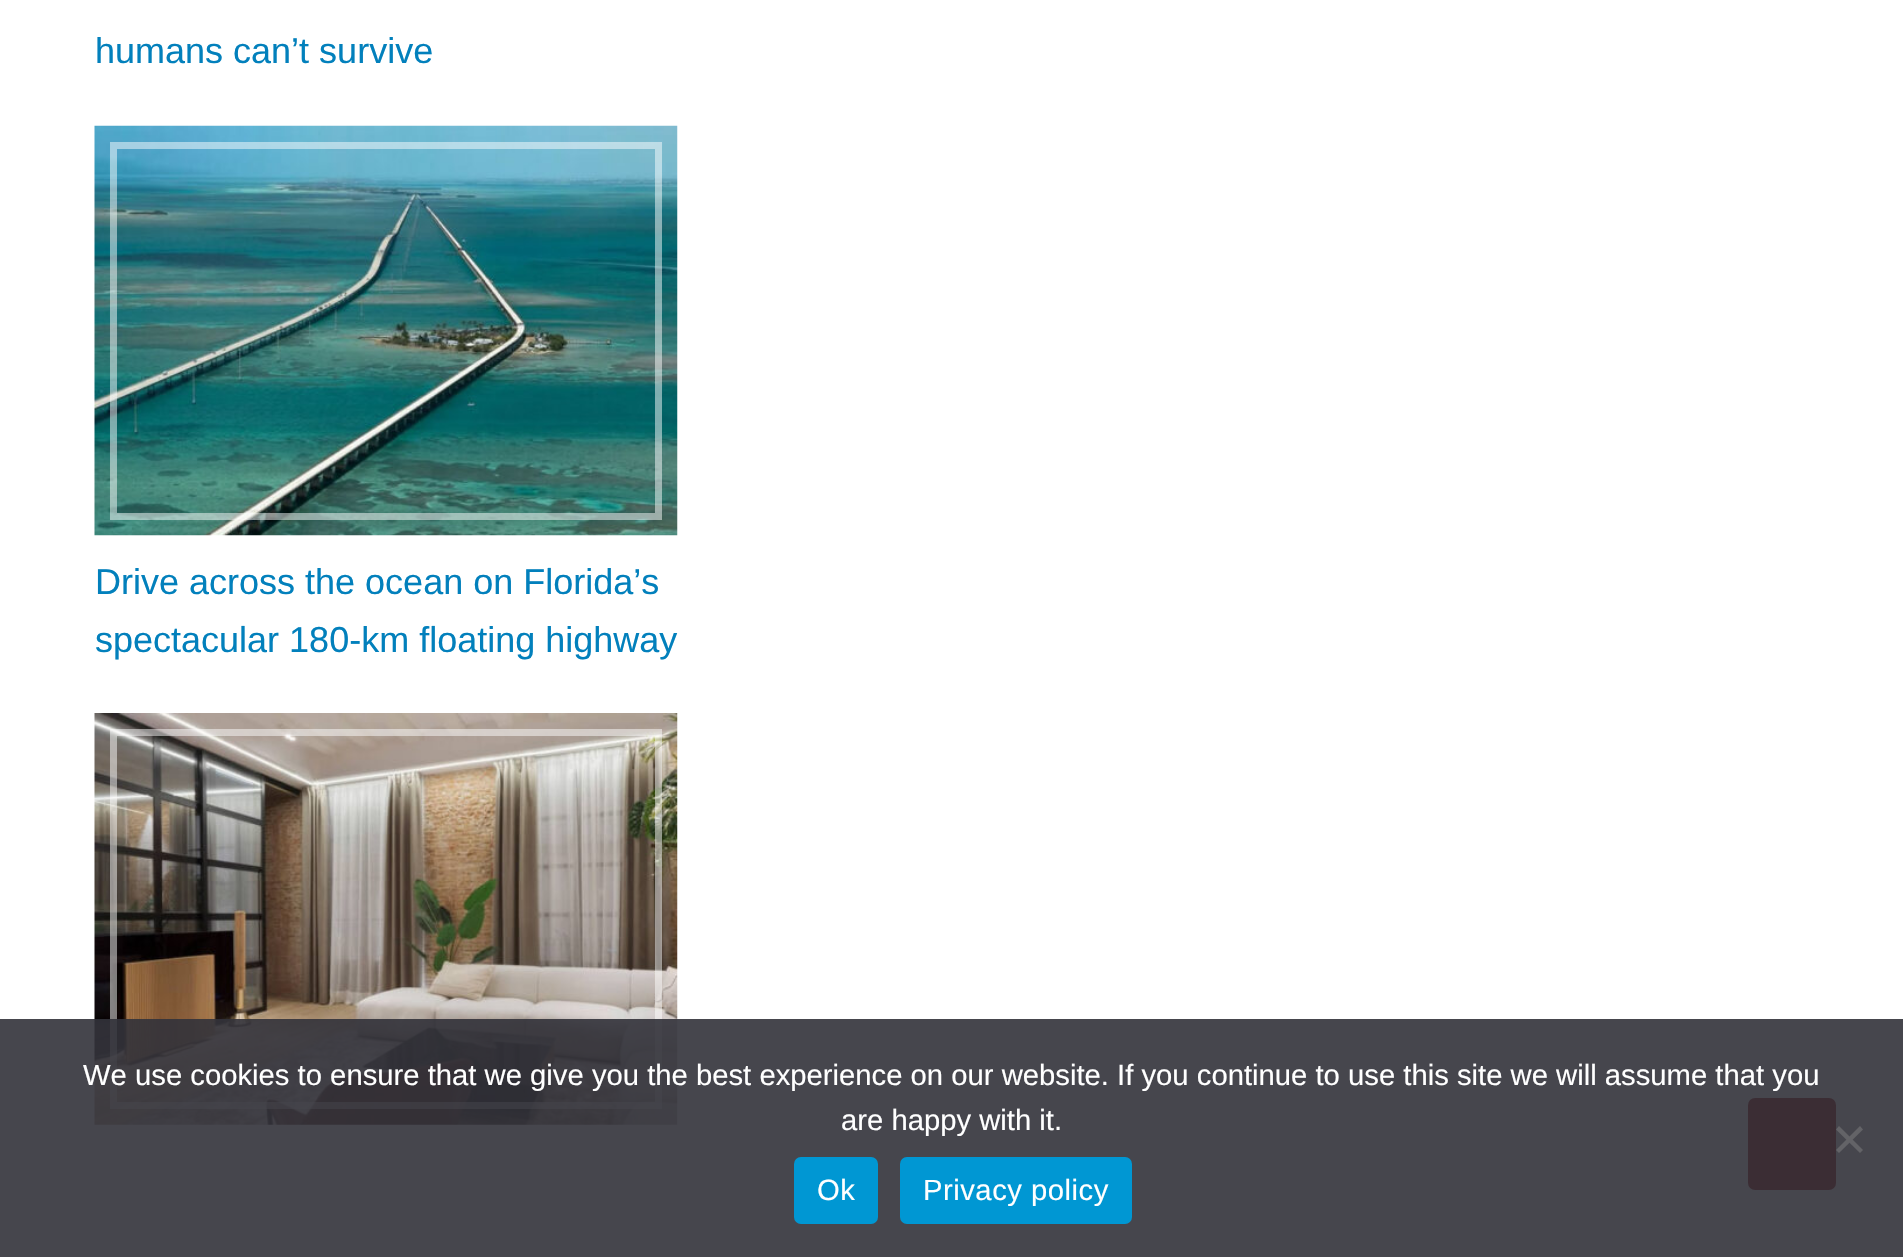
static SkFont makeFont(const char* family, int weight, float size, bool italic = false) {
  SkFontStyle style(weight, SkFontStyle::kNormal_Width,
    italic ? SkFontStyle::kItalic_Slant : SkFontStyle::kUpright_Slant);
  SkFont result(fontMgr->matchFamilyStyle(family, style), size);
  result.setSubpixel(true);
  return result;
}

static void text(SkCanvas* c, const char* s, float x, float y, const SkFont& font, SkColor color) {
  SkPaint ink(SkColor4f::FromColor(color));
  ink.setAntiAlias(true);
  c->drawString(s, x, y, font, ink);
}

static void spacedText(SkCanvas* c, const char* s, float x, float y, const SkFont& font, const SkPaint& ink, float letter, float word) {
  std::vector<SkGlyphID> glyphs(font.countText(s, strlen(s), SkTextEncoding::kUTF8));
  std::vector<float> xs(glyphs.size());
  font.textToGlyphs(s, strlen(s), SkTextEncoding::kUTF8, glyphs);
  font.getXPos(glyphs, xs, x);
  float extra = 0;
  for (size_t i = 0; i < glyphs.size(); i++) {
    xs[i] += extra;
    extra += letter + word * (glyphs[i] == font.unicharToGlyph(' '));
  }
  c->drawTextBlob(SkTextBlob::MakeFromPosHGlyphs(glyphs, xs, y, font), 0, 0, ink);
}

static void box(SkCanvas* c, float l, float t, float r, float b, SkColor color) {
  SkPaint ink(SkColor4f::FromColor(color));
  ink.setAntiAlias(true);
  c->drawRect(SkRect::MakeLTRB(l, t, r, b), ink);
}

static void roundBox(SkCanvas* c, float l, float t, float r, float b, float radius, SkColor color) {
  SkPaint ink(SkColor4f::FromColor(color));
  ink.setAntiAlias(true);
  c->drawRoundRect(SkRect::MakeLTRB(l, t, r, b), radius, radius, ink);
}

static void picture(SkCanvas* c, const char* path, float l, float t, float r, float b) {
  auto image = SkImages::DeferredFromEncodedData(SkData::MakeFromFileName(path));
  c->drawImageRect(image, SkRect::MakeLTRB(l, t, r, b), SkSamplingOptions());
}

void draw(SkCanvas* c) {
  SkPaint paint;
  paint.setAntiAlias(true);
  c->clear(0xffffffff);
  SkFont face1 = makeFont("Liberation Sans", 400, 36);
  text(c, "humans can’t survive", 95, 63, face1, 0xff0280bc);
  picture(c, "img_01.png", 94, 125, 678, 536);
  paint.setStyle(SkPaint::kStroke_Style);
  paint.setStrokeWidth(7);
  paint.setColor(0x7dffffff);
  c->drawRect(SkRect::MakeLTRB(113.5f, 145.5f, 658.5f, 516.5f), paint);
  text(c, "Drive across the ocean on Florida’s", 95, 594, face1, 0xff0280bc);
  text(c, "spectacular 180-km floating highway", 95, 652, face1, 0xff0280bc);
  picture(c, "img_02.png", 94, 713, 678, 1125);
  c->drawRect(SkRect::MakeLTRB(113.5f, 732.5f, 658.5f, 1105.5f), paint);
  roundBox(c, 1748, 1098, 1836, 1190, 7, 0xff8c0000);
  box(c, 0, 1019, 1903, 1257, 0xe632323a);
  SkFont face2 = makeFont("Liberation Sans", 400, 29.25f);
  text(c, "We use cookies to ensure that we give you the best experience on our website. If you continue to use this site we will assume that you", 83, 1085, face2, 0xffffffff);
  text(c, "are happy with it.", 841, 1130, face2, 0xffffffff);
  paint.setStyle(SkPaint::kFill_Style);
  paint.setColor(0xff636367);
  c->drawPath(SkPathBuilder().moveTo(1860, 1126).lineTo(1863, 1129.5f).lineTo(1839, 1153).lineTo(1836, 1150).close().detach(), paint);
  c->drawPath(SkPathBuilder().moveTo(1836, 1129.5f).lineTo(1839, 1126).lineTo(1863, 1150).lineTo(1860, 1153).close().detach(), paint);
  roundBox(c, 794, 1157, 878, 1224, 7, 0xff0097d3);
  paint.setColor(0xffffffff);
  spacedText(c, "Ok", 817, 1200, face2, paint, 0.5f, 0);
  roundBox(c, 900, 1157, 1132, 1224, 7, 0xff0097d3);
  spacedText(c, "Privacy policy", 923, 1200, face2, paint, 0.5f, 0);
}
